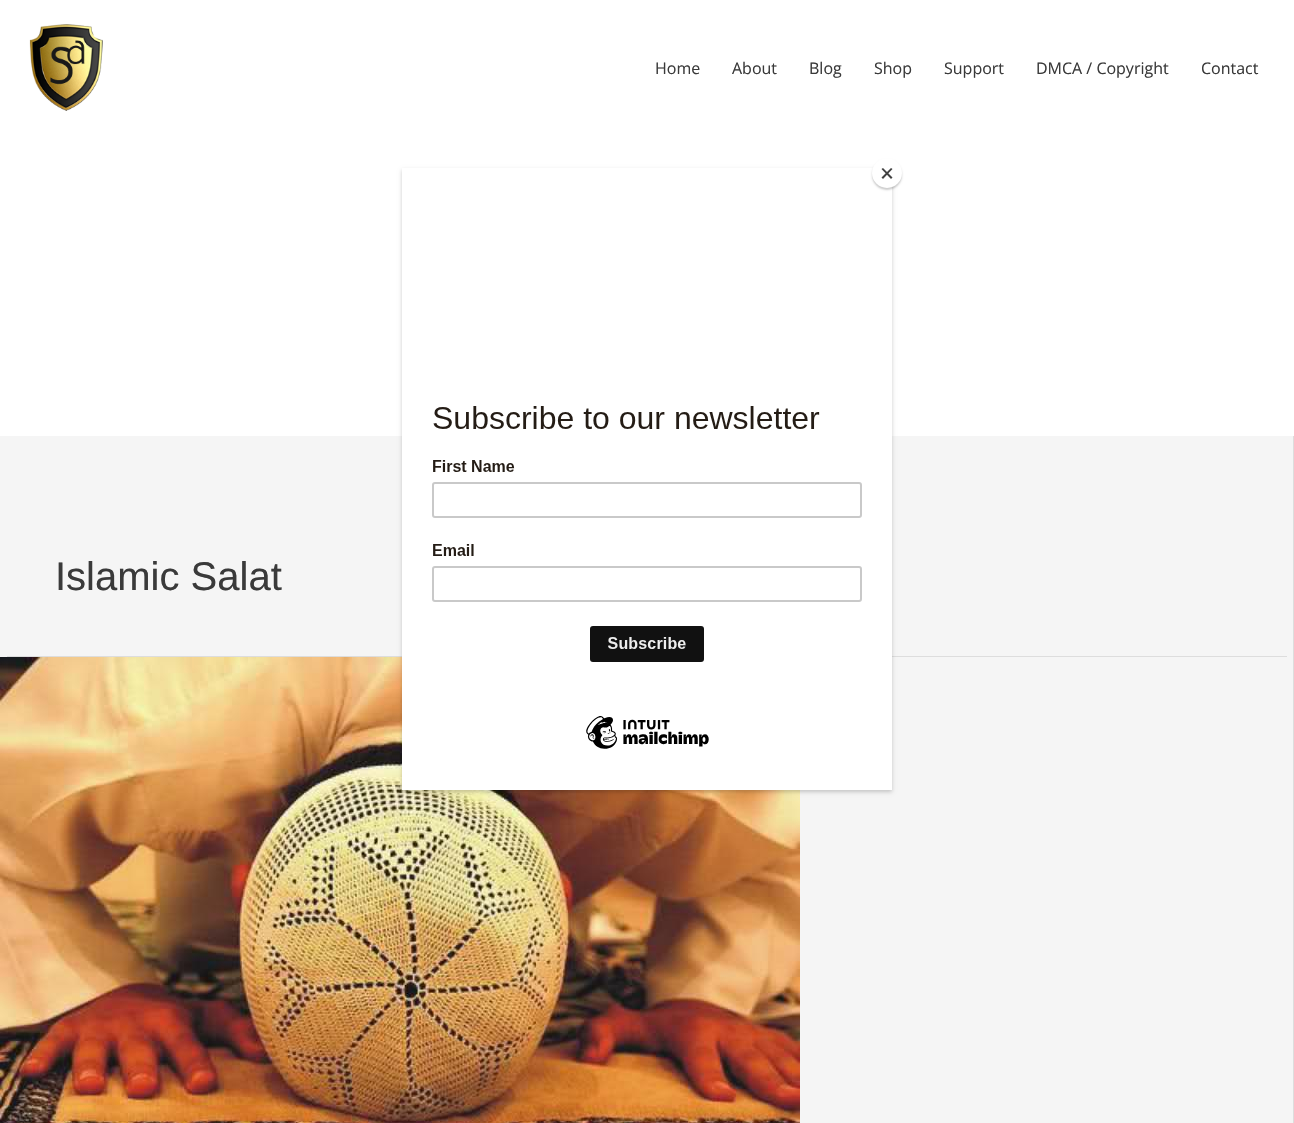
static SkFont makeFont(const char* family, int weight, float size, bool italic = false) {
  SkFontStyle style(weight, SkFontStyle::kNormal_Width,
    italic ? SkFontStyle::kItalic_Slant : SkFontStyle::kUpright_Slant);
  SkFont result(fontMgr->matchFamilyStyle(family, style), size);
  result.setSubpixel(true);
  return result;
}

static void text(SkCanvas* c, const char* s, float x, float y, const SkFont& font, SkColor color) {
  SkPaint ink(SkColor4f::FromColor(color));
  ink.setAntiAlias(true);
  c->drawString(s, x, y, font, ink);
}

static void box(SkCanvas* c, float l, float t, float r, float b, SkColor color) {
  SkPaint ink(SkColor4f::FromColor(color));
  ink.setAntiAlias(true);
  c->drawRect(SkRect::MakeLTRB(l, t, r, b), ink);
}

static void picture(SkCanvas* c, const char* path, float l, float t, float r, float b) {
  auto image = SkImages::DeferredFromEncodedData(SkData::MakeFromFileName(path));
  c->drawImageRect(image, SkRect::MakeLTRB(l, t, r, b), SkSamplingOptions());
}

void draw(SkCanvas* c) {
  SkPaint paint;
  paint.setAntiAlias(true);
  c->clear(0xfff5f5f5);
  box(c, 0, 0, 1294, 436, 0xffffffff);
  picture(c, "img_01.png", 29, 24, 103, 111);
  SkFont face1 = makeFont("Open Sans", 400, 16);
  text(c, "Home", 655, 74, face1, 0xff3a3a3a);
  text(c, "About", 732, 74, face1, 0xff3a3a3a);
  text(c, "Blog", 809, 74, face1, 0xff3a3a3a);
  text(c, "Shop", 874, 74, face1, 0xff3a3a3a);
  text(c, "Support", 944, 74, face1, 0xff3a3a3a);
  text(c, "DMCA / Copyright", 1036, 74, face1, 0xff3a3a3a);
  text(c, "Contact", 1201, 74, face1, 0xff3a3a3a);
  box(c, 1293, 436, 1294, 1123, 0xffdddddd);
  box(c, 7, 656, 1287, 657, 0xffdddddd);
  SkFont face2 = makeFont("Liberation Sans", 400, 40);
  text(c, "Islamic Salat", 55, 590, face2, 0xff3a3a3a);
  picture(c, "img_02.png", 0, 657, 800, 1123);
  paint.setColor(0x33000000);
  paint.setMaskFilter(SkMaskFilter::MakeBlur(kNormal_SkBlurStyle, 1));
  c->drawRoundRect(SkRect::MakeLTRB(872, 160, 902, 190), 15, 15, paint);
  paint.setMaskFilter(nullptr);
  c->save();
  c->clipPath(SkPathBuilder(SkPathFillType::kEvenOdd).moveTo(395, 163).lineTo(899, 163).lineTo(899, 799).lineTo(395, 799).close().moveTo(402, 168).lineTo(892, 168).lineTo(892, 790).lineTo(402, 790).close().detach(), true);
  paint.setMaskFilter(SkMaskFilter::MakeBlur(kNormal_SkBlurStyle, 2));
  c->drawRect(SkRect::MakeLTRB(402, 170, 892, 792), paint);
  paint.setMaskFilter(nullptr);
  c->restore();
  paint.setColor(0xffffffff);
  c->drawCircle(887, 173, 15, paint);
  paint.setColor(0xff414141);
  c->drawPath(SkPathBuilder().moveTo(891, 168).lineTo(892.5f, 169).lineTo(883, 179).lineTo(881.5f, 177.5f).close().detach(), paint);
  c->drawPath(SkPathBuilder().moveTo(881.5f, 169).lineTo(883, 168).lineTo(892.5f, 177.5f).lineTo(891, 179).close().detach(), paint);
  picture(c, "img_03.png", 402, 406, 892, 790);
}
